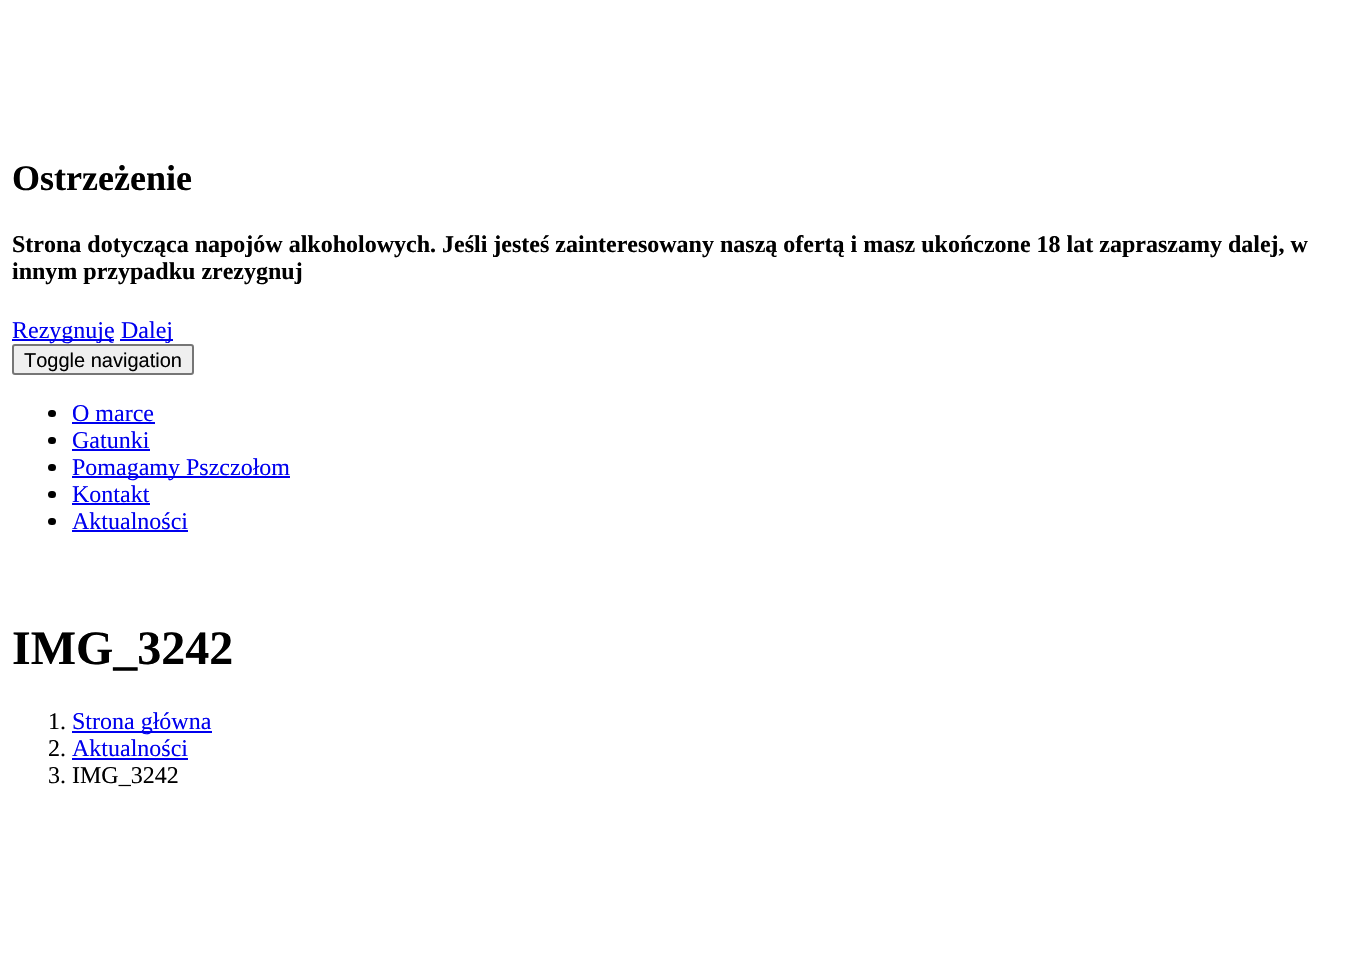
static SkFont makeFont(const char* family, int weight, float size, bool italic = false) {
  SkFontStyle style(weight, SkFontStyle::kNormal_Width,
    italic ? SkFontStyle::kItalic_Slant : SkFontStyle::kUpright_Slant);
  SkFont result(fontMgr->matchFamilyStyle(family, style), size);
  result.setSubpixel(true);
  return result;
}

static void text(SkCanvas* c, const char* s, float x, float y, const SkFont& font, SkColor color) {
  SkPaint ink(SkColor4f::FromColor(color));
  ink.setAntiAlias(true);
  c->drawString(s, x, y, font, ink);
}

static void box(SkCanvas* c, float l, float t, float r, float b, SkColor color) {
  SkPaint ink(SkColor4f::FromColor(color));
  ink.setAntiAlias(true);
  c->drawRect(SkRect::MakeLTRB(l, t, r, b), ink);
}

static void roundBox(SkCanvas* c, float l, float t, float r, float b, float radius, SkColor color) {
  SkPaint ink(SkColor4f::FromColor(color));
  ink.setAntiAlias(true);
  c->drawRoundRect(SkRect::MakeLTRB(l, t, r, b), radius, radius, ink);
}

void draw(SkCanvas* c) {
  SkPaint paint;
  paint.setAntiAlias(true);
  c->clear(0xffffffff);
  SkFont face1 = makeFont("Liberation Serif", 700, 36);
  text(c, "Ostrzeżenie", 12, 190, face1, 0xff000000);
  SkFont face2 = makeFont("Liberation Serif", 700, 24);
  text(c, "Strona dotycząca napojów alkoholowych. Jeśli jesteś zainteresowany naszą ofertą i masz ukończone 18 lat zapraszamy dalej, w", 12, 252, face2, 0xff000000);
  text(c, "innym przypadku zrezygnuj", 12, 279, face2, 0xff000000);
  box(c, 12, 339, 114, 341, 0xff0000ee);
  SkFont face3 = makeFont("Liberation Serif", 400, 24);
  text(c, "Rezygnuję", 12, 338, face3, 0xff0000ee);
  box(c, 120, 339, 173, 341, 0xff0000ee);
  text(c, "Dalej", 121, 338, face3, 0xff0000ee);
  paint.setColor(0xffefefef);
  c->drawRoundRect(SkRect::MakeLTRB(13, 345, 193, 374), 2, 2, paint);
  paint.setStyle(SkPaint::kStroke_Style);
  paint.setStrokeWidth(2);
  paint.setColor(0xff767676);
  c->drawRoundRect(SkRect::MakeLTRB(13, 345, 193, 374), 2, 2, paint);
  SkFont face4 = makeFont("Liberation Sans", 400, 20);
  text(c, "Toggle navigation", 24, 367, face4, 0xff000000);
  roundBox(c, 48, 410, 56, 417, 3.5f, 0xff000000);
  text(c, "O marce", 72, 421, face3, 0xff0000ee);
  box(c, 72, 422, 155, 424, 0xff0000ee);
  roundBox(c, 48, 437, 56, 444, 3.5f, 0xff000000);
  text(c, "Gatunki", 72, 448, face3, 0xff0000ee);
  box(c, 72, 449, 150, 451, 0xff0000ee);
  roundBox(c, 48, 464, 56, 471, 3.5f, 0xff000000);
  box(c, 72, 476, 290, 478, 0xff0000ee);
  text(c, "Pomagamy Pszczołom", 72, 475, face3, 0xff0000ee);
  roundBox(c, 48, 491, 56, 498, 3.5f, 0xff000000);
  text(c, "Kontakt", 72, 502, face3, 0xff0000ee);
  box(c, 72, 503, 150, 505, 0xff0000ee);
  roundBox(c, 48, 518, 56, 525, 3.5f, 0xff000000);
  text(c, "Aktualności", 72, 529, face3, 0xff0000ee);
  box(c, 72, 530, 188, 532, 0xff0000ee);
  SkFont face5 = makeFont("Liberation Serif", 700, 48);
  text(c, "IMG_3242", 12, 664, face5, 0xff000000);
  text(c, "1.", 48, 729, face3, 0xff000000);
  box(c, 72, 731, 212, 733, 0xff0000ee);
  text(c, "Strona główna", 72, 729, face3, 0xff0000ee);
  text(c, "2.", 48, 756, face3, 0xff000000);
  text(c, "Aktualności", 72, 756, face3, 0xff0000ee);
  box(c, 72, 758, 188, 760, 0xff0000ee);
  text(c, "3. IMG_3242", 48, 783, face3, 0xff000000);
}
